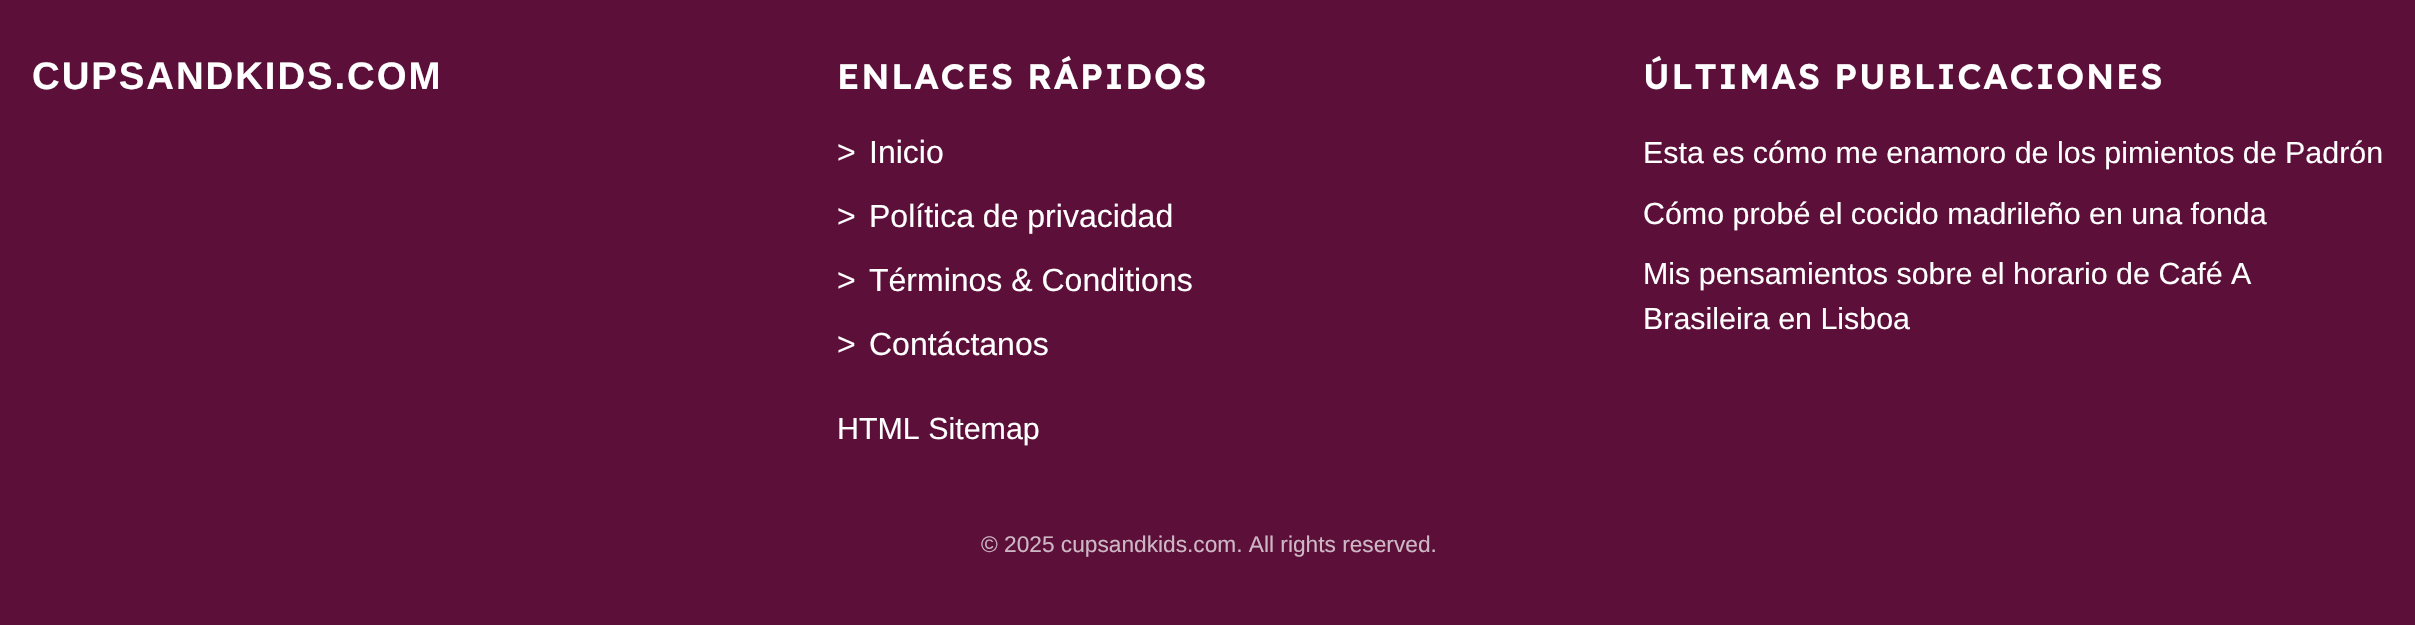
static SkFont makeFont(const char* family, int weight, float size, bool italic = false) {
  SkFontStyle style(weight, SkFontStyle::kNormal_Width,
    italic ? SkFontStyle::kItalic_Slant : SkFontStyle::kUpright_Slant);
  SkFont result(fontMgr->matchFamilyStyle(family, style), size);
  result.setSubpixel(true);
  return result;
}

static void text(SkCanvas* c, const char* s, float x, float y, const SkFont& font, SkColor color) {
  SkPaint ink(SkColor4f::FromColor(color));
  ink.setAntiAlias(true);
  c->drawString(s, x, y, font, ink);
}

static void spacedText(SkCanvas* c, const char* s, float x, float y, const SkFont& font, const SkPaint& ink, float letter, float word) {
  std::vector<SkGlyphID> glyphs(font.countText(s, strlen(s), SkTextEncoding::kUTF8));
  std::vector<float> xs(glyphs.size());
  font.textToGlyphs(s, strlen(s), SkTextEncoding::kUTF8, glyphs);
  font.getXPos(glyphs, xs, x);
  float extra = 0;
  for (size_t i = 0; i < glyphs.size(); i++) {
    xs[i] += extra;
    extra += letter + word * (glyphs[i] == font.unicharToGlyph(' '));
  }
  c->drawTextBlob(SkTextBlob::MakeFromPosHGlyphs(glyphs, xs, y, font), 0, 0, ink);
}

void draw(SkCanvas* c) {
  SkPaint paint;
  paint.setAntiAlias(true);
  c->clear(0xff5b0f39);
  SkFont face1 = makeFont("Liberation Sans", 700, 38.4f);
  paint.setColor(0xffffffff);
  spacedText(c, "CUPSANDKIDS.COM", 32, 89, face1, paint, 1.9f, 0);
  SkFont face2 = makeFont("Lexend Deca", 600, 35.25f);
  spacedText(c, "ENLACES RÁPIDOS", 837, 89, face2, paint, 1.75f, 0);
  SkFont face3 = makeFont("Liberation Sans", 400, 32);
  text(c, ">", 837, 163, face3, 0xffffffff);
  text(c, "Inicio", 869, 163, face3, 0xffffffff);
  text(c, ">", 837, 227, face3, 0xffffffff);
  text(c, "Política de privacidad", 869, 227, face3, 0xffffffff);
  text(c, ">", 837, 291, face3, 0xffffffff);
  text(c, "Términos & Conditions", 869, 291, face3, 0xffffffff);
  text(c, ">", 837, 355, face3, 0xffffffff);
  text(c, "Contáctanos", 869, 355, face3, 0xffffffff);
  SkFont face4 = makeFont("Liberation Sans", 400, 30.4f);
  text(c, "HTML Sitemap", 837, 439, face4, 0xffffffff);
  spacedText(c, "ÚLTIMAS PUBLICACIONES", 1643, 89, face2, paint, 1.75f, 0);
  text(c, "Esta es cómo me enamoro de los pimientos de Padrón", 1643, 163, face4, 0xffffffff);
  text(c, "Cómo probé el cocido madrileño en una fonda", 1643, 224, face4, 0xffffffff);
  text(c, "Mis pensamientos sobre el horario de Café A", 1643, 284, face4, 0xffffffff);
  text(c, "Brasileira en Lisboa", 1643, 329, face4, 0xffffffff);
  SkFont face5 = makeFont("Liberation Sans", 400, 22.7f);
  text(c, "© 2025 cupsandkids.com. All rights reserved.", 981, 552, face5, 0xffceb7c4);
}
